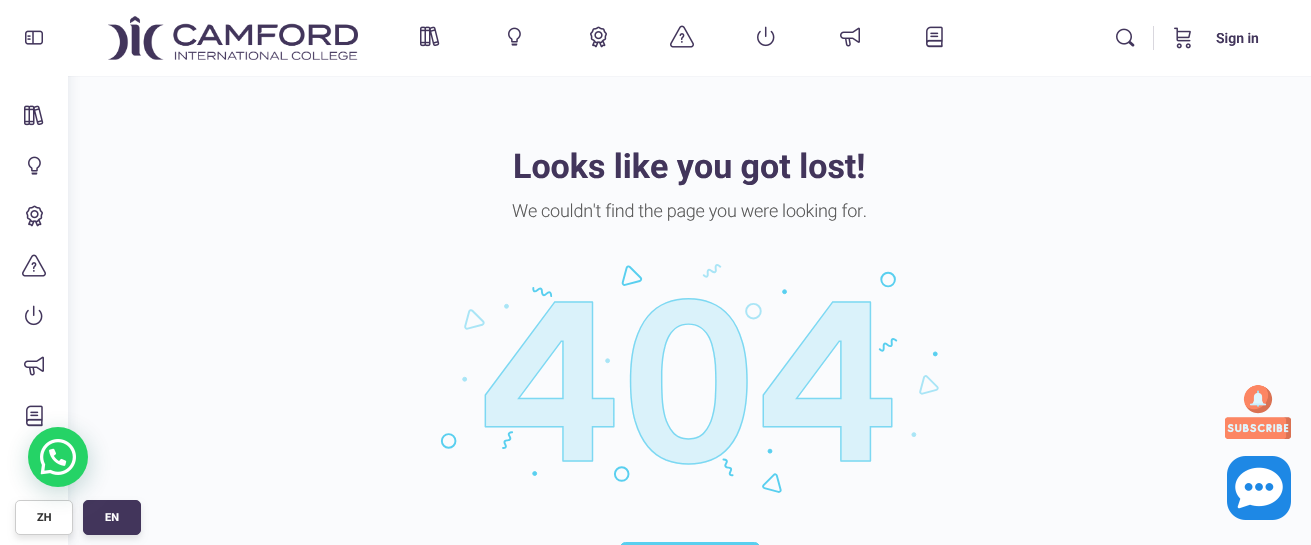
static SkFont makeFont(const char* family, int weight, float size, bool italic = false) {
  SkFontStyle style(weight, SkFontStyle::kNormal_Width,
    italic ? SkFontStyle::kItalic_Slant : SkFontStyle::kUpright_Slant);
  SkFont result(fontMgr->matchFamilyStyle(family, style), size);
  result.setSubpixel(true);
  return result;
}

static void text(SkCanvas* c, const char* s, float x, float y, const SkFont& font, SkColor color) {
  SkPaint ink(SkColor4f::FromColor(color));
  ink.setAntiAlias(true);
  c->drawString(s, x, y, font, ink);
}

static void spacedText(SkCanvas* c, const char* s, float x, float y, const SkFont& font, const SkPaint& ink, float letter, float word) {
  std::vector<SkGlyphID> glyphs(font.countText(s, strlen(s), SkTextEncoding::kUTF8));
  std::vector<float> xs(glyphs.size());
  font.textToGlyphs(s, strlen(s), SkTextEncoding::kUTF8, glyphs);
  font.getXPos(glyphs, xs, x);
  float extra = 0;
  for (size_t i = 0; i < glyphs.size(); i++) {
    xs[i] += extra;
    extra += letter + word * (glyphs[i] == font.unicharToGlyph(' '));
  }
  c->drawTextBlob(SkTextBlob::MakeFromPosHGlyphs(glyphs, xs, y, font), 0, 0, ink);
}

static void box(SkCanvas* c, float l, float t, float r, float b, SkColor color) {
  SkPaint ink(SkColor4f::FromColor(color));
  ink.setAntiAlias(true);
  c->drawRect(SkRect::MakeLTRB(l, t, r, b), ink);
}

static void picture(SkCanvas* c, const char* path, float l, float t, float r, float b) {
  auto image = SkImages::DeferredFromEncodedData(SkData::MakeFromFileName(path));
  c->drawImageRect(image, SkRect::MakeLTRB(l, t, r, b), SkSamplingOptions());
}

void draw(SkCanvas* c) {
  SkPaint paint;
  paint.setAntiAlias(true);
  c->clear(0xfffafbfd);
  paint.setColor(0x1a122b46);
  paint.setMaskFilter(SkMaskFilter::MakeBlur(kNormal_SkBlurStyle, 6.5f));
  c->drawRect(SkRect::MakeLTRB(0, 3, 68, 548), paint);
  paint.setMaskFilter(nullptr);
  box(c, 0, 0, 68, 545, 0xffffffff);
  picture(c, "img_01.png", 25, 30, 43, 45);
  picture(c, "img_02.png", 24, 105, 44, 126);
  picture(c, "img_03.png", 28, 156, 41, 175);
  picture(c, "img_04.png", 26, 205, 43, 227);
  picture(c, "img_05.png", 22, 254, 46, 277);
  picture(c, "img_06.png", 25, 305, 43, 326);
  picture(c, "img_07.png", 24, 356, 44, 376);
  picture(c, "img_08.png", 26, 405, 43, 427);
  box(c, 68, 76, 1311, 77, 0x0d8b8d9d);
  box(c, 68, 0, 1311, 76, 0xffffffff);
  picture(c, "img_09.png", 108, 16, 358, 60);
  picture(c, "img_02.png", 420, 26, 440, 47);
  picture(c, "img_03.png", 508, 27, 521, 46);
  picture(c, "img_04.png", 590, 26, 607, 48);
  picture(c, "img_05.png", 670, 25, 694, 48);
  picture(c, "img_06.png", 757, 26, 775, 47);
  picture(c, "img_07.png", 840, 27, 860, 47);
  picture(c, "img_08.png", 926, 26, 943, 48);
  picture(c, "img_10.png", 1116, 28, 1135, 47);
  box(c, 1153, 26, 1154, 50, 0xffd9d7de);
  picture(c, "img_11.png", 1174, 27, 1191, 49);
  SkFont face1 = makeFont("Roboto", 600, 14);
  text(c, "Sign in", 1216, 43, face1, 0xff42355b);
  SkFont face2 = makeFont("Roboto", 700, 34);
  text(c, "Looks like you got lost!", 513, 178, face2, 0xff42355b);
  SkFont face3 = makeFont("Roboto", 300, 18);
  paint.setColor(0xff5a5a5a);
  spacedText(c, "We couldn't find the page you were looking for.", 512, 217, face3, paint, -0.25f, 0);
  picture(c, "img_12.png", 440, 264, 939, 493);
  paint.setColor(0xff59cfef);
  c->drawRoundRect(SkRect::MakeLTRB(620.5f, 542.5f, 759.5f, 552.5f), 6.5f, 6.5f, paint);
  paint.setStyle(SkPaint::kStroke_Style);
  paint.setStrokeWidth(1);
  c->drawRoundRect(SkRect::MakeLTRB(620.5f, 542.5f, 759.5f, 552.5f), 6.5f, 6.5f, paint);
  paint.setStyle(SkPaint::kFill_Style);
  paint.setColor(0x1a000000);
  paint.setMaskFilter(SkMaskFilter::MakeBlur(kNormal_SkBlurStyle, 3));
  c->drawRoundRect(SkRect::MakeLTRB(15, 504, 73, 539), 5, 5, paint);
  paint.setMaskFilter(nullptr);
  paint.setColor(0xffffffff);
  c->drawRoundRect(SkRect::MakeLTRB(15.5f, 500.5f, 72.5f, 534.5f), 4.5f, 4.5f, paint);
  paint.setStyle(SkPaint::kStroke_Style);
  paint.setColor(0xffcccccc);
  c->drawRoundRect(SkRect::MakeLTRB(15.5f, 500.5f, 72.5f, 534.5f), 4.5f, 4.5f, paint);
  SkFont face4 = makeFont("Roboto", 700, 11);
  text(c, "ZH", 37, 521, face4, 0xff333333);
  paint.setStyle(SkPaint::kFill_Style);
  paint.setColor(0x1a000000);
  paint.setMaskFilter(SkMaskFilter::MakeBlur(kNormal_SkBlurStyle, 3));
  c->drawRoundRect(SkRect::MakeLTRB(83, 504, 141, 539), 5, 5, paint);
  paint.setMaskFilter(nullptr);
  paint.setColor(0xff42355b);
  c->drawRoundRect(SkRect::MakeLTRB(83.5f, 500.5f, 140.5f, 534.5f), 4.5f, 4.5f, paint);
  paint.setStyle(SkPaint::kStroke_Style);
  c->drawRoundRect(SkRect::MakeLTRB(83.5f, 500.5f, 140.5f, 534.5f), 4.5f, 4.5f, paint);
  text(c, "EN", 105, 521, face4, 0xffffffff);
  paint.setStyle(SkPaint::kFill_Style);
  paint.setColor(0x3d075e54);
  paint.setMaskFilter(SkMaskFilter::MakeBlur(kNormal_SkBlurStyle, 12));
  c->drawRoundRect(SkRect::MakeLTRB(29, 433, 89, 493), 30, 30, paint);
  paint.setMaskFilter(nullptr);
  paint.setColor(0xff25d366);
  c->drawCircle(58, 457, 30, paint);
  picture(c, "img_13.png", 40, 439, 76, 475);
  picture(c, "img_14.png", 1225, 385, 1291, 439);
  picture(c, "img_15.png", 1227, 456, 1291, 520);
}
